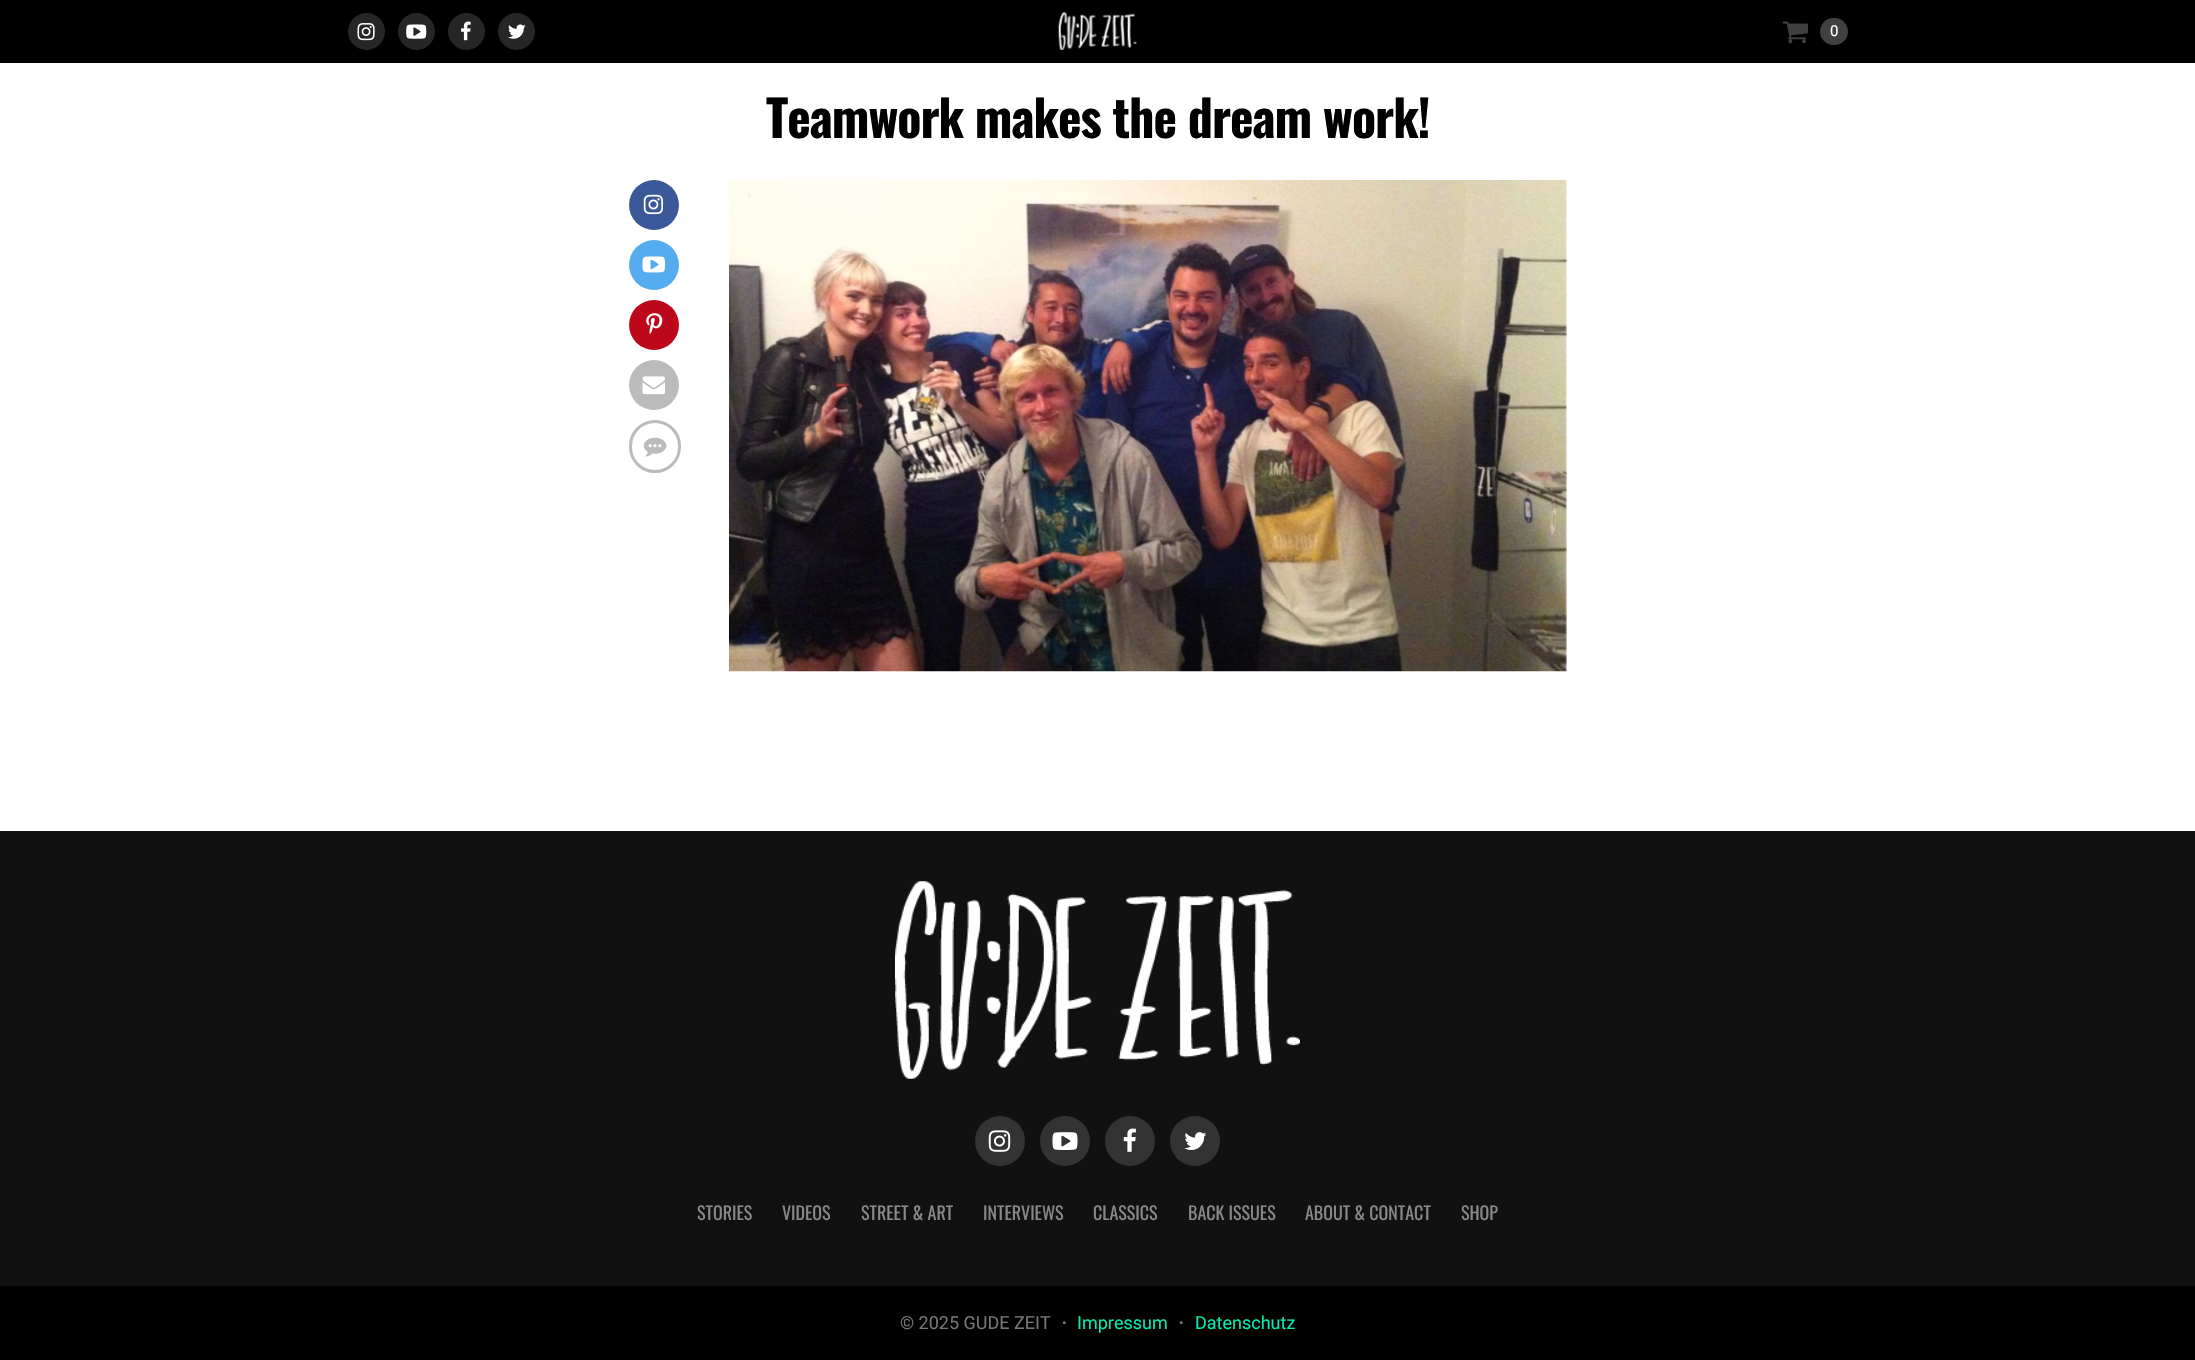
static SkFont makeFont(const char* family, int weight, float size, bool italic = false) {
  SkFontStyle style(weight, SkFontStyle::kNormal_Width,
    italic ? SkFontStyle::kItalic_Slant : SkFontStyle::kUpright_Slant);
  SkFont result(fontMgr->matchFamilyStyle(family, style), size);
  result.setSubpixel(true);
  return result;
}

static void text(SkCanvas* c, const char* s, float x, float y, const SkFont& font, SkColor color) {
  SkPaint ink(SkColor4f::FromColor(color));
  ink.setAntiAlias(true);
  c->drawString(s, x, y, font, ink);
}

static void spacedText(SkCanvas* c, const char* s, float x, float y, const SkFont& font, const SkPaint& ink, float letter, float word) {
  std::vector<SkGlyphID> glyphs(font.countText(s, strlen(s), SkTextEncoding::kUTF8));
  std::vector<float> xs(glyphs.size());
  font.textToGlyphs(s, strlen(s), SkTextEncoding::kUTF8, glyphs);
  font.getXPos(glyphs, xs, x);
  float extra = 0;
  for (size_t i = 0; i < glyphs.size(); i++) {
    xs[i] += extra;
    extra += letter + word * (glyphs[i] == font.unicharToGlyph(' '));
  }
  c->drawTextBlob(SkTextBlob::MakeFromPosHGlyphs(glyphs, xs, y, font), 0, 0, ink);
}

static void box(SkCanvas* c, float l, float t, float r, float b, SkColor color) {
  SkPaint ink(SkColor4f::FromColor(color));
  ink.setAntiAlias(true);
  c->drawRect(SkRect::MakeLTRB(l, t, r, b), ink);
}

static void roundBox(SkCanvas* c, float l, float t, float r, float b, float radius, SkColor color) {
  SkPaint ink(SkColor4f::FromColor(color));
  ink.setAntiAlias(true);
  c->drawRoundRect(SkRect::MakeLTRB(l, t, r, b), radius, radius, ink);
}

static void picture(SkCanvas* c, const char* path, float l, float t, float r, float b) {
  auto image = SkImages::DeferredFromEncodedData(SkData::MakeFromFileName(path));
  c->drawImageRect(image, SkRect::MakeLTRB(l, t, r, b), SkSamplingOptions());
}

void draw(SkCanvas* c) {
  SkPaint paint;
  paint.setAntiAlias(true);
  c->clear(0xffffffff);
  box(c, 0, 0, 2195, 63, 0xff000000);
  paint.setColor(0xff262626);
  c->drawCircle(366.5f, 31.5f, 18.5f, paint);
  picture(c, "img_01.png", 357, 23, 375, 41);
  c->drawCircle(416.5f, 31.5f, 18.5f, paint);
  picture(c, "img_02.png", 406, 24, 427, 39);
  c->drawCircle(466.5f, 31.5f, 18.5f, paint);
  picture(c, "img_03.png", 461, 21, 471, 41);
  c->drawCircle(516.5f, 31.5f, 18.5f, paint);
  picture(c, "img_04.png", 508, 24, 526, 39);
  picture(c, "img_05.png", 1058, 12, 1137, 50);
  picture(c, "img_06.png", 1782, 21, 1808, 44);
  roundBox(c, 1820, 18, 1848, 45, 13.5f, 0xff404040);
  SkFont face1 = makeFont("Roboto", 400, 15);
  text(c, "0", 1830, 36, face1, 0xffffffff);
  SkFont face2 = makeFont("Oswald", 700, 50);
  paint.setColor(0xff000000);
  spacedText(c, "Teamwork makes the dream work!", 766, 138, face2, paint, -1, 0);
  paint.setColor(0xff3b5998);
  c->drawCircle(654, 205, 25, paint);
  picture(c, "img_07.png", 643, 194, 664, 215);
  paint.setColor(0xff55acee);
  c->drawCircle(654, 265, 25, paint);
  picture(c, "img_08.png", 642, 256, 665, 273);
  paint.setColor(0xffbd081c);
  c->drawCircle(654, 325, 25, paint);
  picture(c, "img_09.png", 646, 313, 663, 334);
  paint.setColor(0xffbbbbbb);
  c->drawCircle(654, 385, 25, paint);
  picture(c, "img_10.png", 642, 376, 665, 395);
  paint.setStyle(SkPaint::kStroke_Style);
  paint.setStrokeWidth(3);
  c->drawRoundRect(SkRect::MakeLTRB(630.5f, 421.5f, 679.5f, 471.5f), 24.5f, 24.5f, paint);
  picture(c, "img_11.png", 643, 437, 667, 457);
  picture(c, "img_12.png", 729, 180, 1567, 672);
  box(c, 0, 831, 2195, 1286, 0xff111111);
  picture(c, "img_13.png", 895, 881, 1300, 1079);
  paint.setStyle(SkPaint::kFill_Style);
  paint.setColor(0xff333333);
  c->drawCircle(1000, 1141, 25, paint);
  picture(c, "img_14.png", 988, 1130, 1011, 1152);
  c->drawCircle(1065, 1141, 25, paint);
  picture(c, "img_15.png", 1052, 1132, 1078, 1150);
  c->drawCircle(1130, 1141, 25, paint);
  picture(c, "img_16.png", 1123, 1128, 1136, 1152);
  c->drawCircle(1195, 1141, 25, paint);
  picture(c, "img_17.png", 1184, 1132, 1207, 1150);
  SkFont face3 = makeFont("Oswald", 400, 18);
  text(c, "STORIES", 697, 1220, face3, 0xff888888);
  text(c, "VIDEOS", 782, 1220, face3, 0xff888888);
  text(c, "STREET & ART", 861, 1220, face3, 0xff888888);
  text(c, "INTERVIEWS", 983, 1220, face3, 0xff888888);
  text(c, "CLASSICS", 1093, 1220, face3, 0xff888888);
  text(c, "BACK ISSUES", 1188, 1220, face3, 0xff888888);
  text(c, "ABOUT & CONTACT", 1305, 1220, face3, 0xff888888);
  text(c, "SHOP", 1461, 1220, face3, 0xff888888);
  box(c, 0, 1286, 2195, 1360, 0xff000000);
  SkFont face4 = makeFont("Roboto", 400, 18);
  text(c, "© 2025 GUDE ZEIT", 900, 1329, face4, 0xff777777);
  SkFont face5 = makeFont("WenQuanYi Zen Hei", 500, 18);
  text(c, "・", 1055, 1329, face5, 0xff777777);
  text(c, "Impressum", 1077, 1329, face4, 0xff0be6af);
  text(c, "・", 1172, 1329, face5, 0xff777777);
  text(c, "Datenschutz", 1195, 1329, face4, 0xff0be6af);
}
